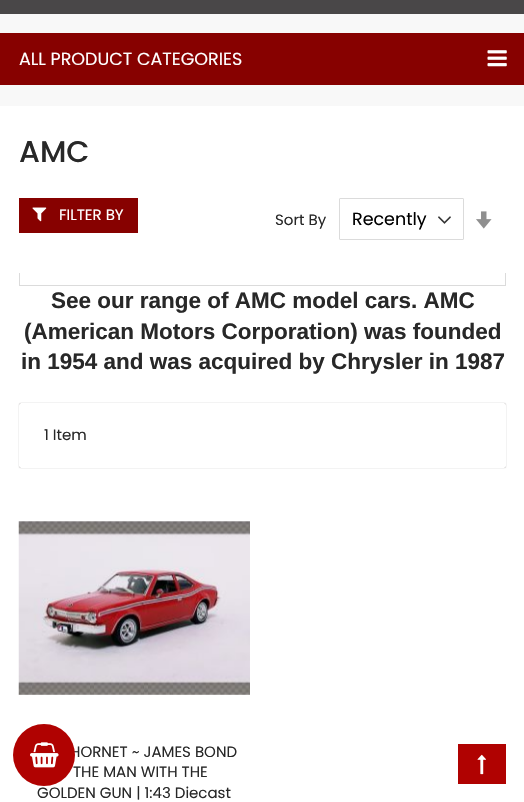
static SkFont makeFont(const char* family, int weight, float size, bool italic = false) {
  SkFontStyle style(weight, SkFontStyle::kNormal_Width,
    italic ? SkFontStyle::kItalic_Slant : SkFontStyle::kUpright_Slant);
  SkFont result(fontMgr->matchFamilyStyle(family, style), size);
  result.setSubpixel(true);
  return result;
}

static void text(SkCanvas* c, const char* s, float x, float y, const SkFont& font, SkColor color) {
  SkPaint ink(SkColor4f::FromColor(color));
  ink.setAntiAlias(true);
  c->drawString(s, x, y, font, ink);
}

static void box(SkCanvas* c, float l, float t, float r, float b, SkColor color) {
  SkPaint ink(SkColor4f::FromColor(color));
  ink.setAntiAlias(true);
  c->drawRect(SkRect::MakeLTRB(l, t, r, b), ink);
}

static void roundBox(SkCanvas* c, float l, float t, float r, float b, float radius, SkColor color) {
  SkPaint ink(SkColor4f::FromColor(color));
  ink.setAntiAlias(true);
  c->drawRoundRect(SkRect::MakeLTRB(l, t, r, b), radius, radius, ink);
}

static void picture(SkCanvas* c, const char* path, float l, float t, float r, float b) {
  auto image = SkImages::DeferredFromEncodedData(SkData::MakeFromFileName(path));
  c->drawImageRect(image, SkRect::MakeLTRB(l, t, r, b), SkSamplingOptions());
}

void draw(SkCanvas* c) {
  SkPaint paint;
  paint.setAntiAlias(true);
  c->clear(0xff494748);
  box(c, 0, 14, 524, 106, 0xfff8f8f8);
  box(c, 0, 33, 524, 85, 0xff870100);
  SkFont face1 = makeFont("Poppins", 400, 17.5f);
  text(c, "ALL PRODUCT CATEGORIES", 19, 65, face1, 0xffffffff);
  picture(c, "img_01.png", 487, 50, 507, 67);
  box(c, 0, 106, 524, 802, 0xffffffff);
  SkFont face2 = makeFont("Poppins", 500, 30);
  text(c, "AMC", 19, 162, face2, 0xff282828);
  box(c, 19, 198, 138, 233, 0xff870100);
  picture(c, "img_02.png", 32, 207, 47, 222);
  SkFont face3 = makeFont("Poppins", 400, 15);
  text(c, "FILTER BY", 59, 220, face3, 0xffffffff);
  box(c, 505, 273, 506, 286, 0xffdbdbdb);
  box(c, 19, 285, 506, 286, 0xffdbdbdb);
  box(c, 19, 273, 20, 286, 0xffdbdbdb);
  paint.setColor(0xff8c8686);
  paint.setMaskFilter(SkMaskFilter::MakeBlur(kNormal_SkBlurStyle, 0.5f));
  c->drawRoundRect(SkRect::MakeLTRB(19, 403, 506, 468), 2.5f, 2.5f, paint);
  paint.setMaskFilter(nullptr);
  roundBox(c, 19, 403, 506, 468, 2.5f, 0xffffffff);
  text(c, "Sort By", 275, 225, face3, 0xff282828);
  picture(c, "img_03.png", 438, 216, 451, 224);
  paint.setStyle(SkPaint::kStroke_Style);
  paint.setStrokeWidth(1);
  paint.setColor(0xffdbdbdb);
  c->drawRoundRect(SkRect::MakeLTRB(339.5f, 198.5f, 463.5f, 239.5f), 0.5f, 0.5f, paint);
  text(c, "Recently", 352, 225, face1, 0xff000000);
  picture(c, "img_04.png", 476, 211, 492, 229);
  text(c, "1 Item", 44, 440, face3, 0xff282828);
  picture(c, "img_05.png", 18, 521, 250, 695);
  text(c, "HORNET ~ JAMES BOND", 70, 757, face3, 0xff282828);
  text(c, "THE MAN WITH THE", 73, 777, face3, 0xff282828);
  text(c, "GOLDEN GUN | 1:43 Diecast", 37, 798, face3, 0xff282828);
  SkFont face4 = makeFont("Liberation Sans", 700, 22.5f);
  text(c, "See our range of AMC model cars. AMC", 51, 308, face4, 0xff282828);
  text(c, "(American Motors Corporation) was founded", 24, 339, face4, 0xff282828);
  text(c, "in 1954 and was acquired by Chrysler in 1987", 21, 369, face4, 0xff282828);
  paint.setStyle(SkPaint::kFill_Style);
  paint.setColor(0xffb00201);
  c->drawCircle(44, 755, 31, paint);
  picture(c, "img_06.png", 30, 742, 59, 768);
  box(c, 458, 744, 506, 784, 0xffb00201);
  picture(c, "img_07.png", 477, 754, 486, 775);
}
